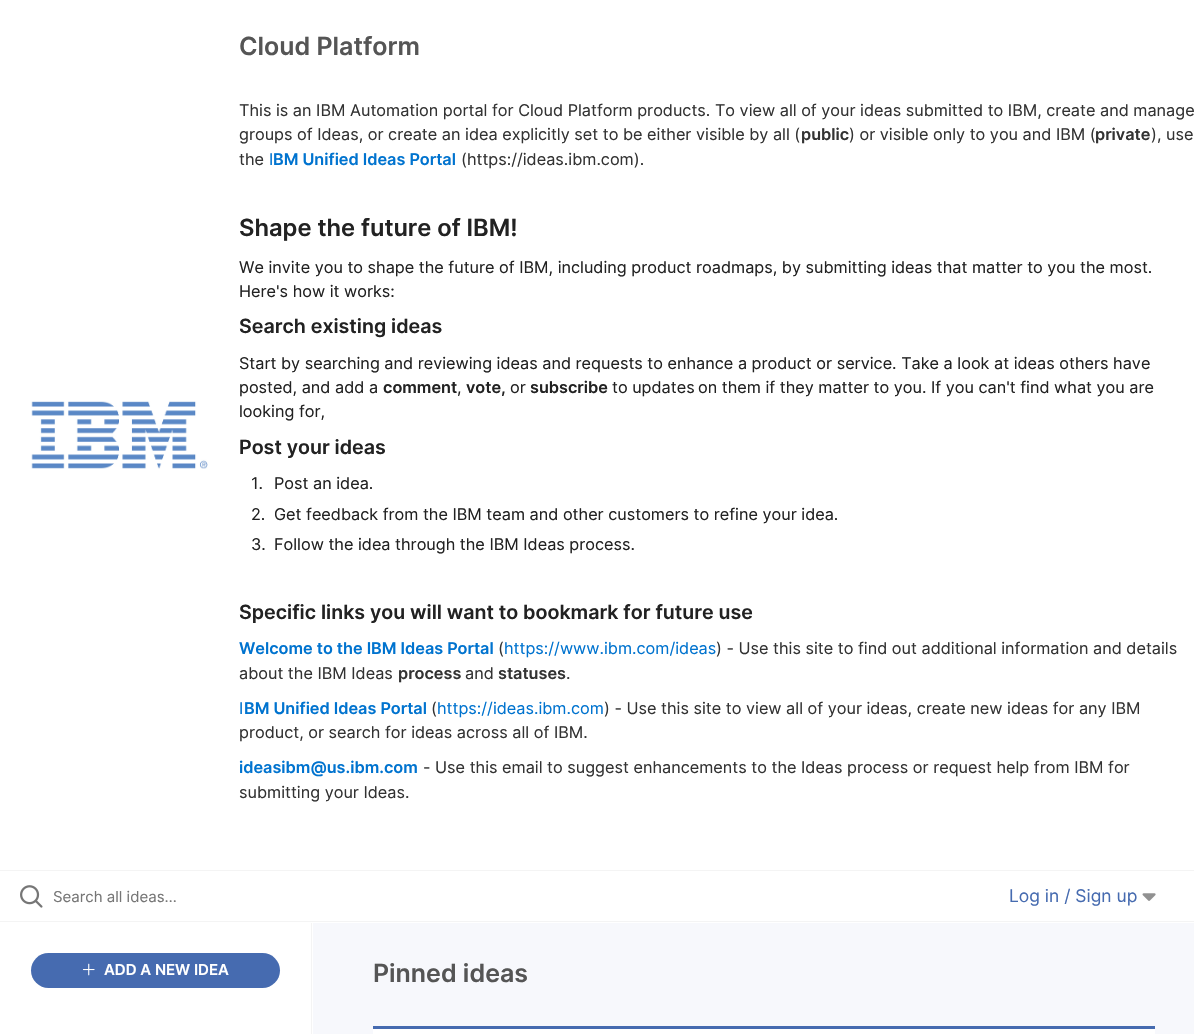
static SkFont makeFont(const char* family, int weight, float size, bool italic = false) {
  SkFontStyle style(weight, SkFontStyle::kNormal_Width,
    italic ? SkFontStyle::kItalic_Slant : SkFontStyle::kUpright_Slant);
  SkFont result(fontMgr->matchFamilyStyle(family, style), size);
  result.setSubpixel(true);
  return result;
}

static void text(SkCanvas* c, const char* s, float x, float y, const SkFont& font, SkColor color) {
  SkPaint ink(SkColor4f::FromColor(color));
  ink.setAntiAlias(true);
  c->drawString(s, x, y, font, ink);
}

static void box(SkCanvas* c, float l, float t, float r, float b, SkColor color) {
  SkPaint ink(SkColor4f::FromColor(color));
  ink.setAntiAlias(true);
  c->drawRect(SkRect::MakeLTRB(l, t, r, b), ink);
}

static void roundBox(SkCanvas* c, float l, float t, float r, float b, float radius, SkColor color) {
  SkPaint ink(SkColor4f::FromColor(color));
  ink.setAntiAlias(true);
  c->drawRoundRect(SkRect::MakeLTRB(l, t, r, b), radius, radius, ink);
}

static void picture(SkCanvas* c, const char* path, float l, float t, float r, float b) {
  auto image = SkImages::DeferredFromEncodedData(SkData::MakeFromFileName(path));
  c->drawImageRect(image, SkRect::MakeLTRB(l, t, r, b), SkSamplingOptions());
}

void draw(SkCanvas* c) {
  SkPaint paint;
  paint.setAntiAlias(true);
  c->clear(0xfff7f8fc);
  box(c, 0, 0, 1194, 870, 0xffffffff);
  box(c, 0, 870, 1194, 871, 0xfff4f4f4);
  picture(c, "img_01.png", 31, 401, 208, 469);
  SkFont face1 = makeFont("Inter", 600, 25);
  text(c, "Cloud Platform", 239, 55, face1, 0xff555555);
  SkFont face2 = makeFont("Inter", 400, 16.25f);
  text(c, "This is an IBM Automation portal for Cloud Platform products. To view all of your ideas submitted to IBM, create and manage", 239, 116, face2, 0xff333333);
  text(c, "groups of Ideas, or create an idea explicitly set to be either visible by all (", 239, 140, face2, 0xff333333);
  SkFont face3 = makeFont("Inter", 600, 16.25f);
  text(c, "public", 801, 140, face3, 0xff333333);
  text(c, ") or visible only to you and IBM (", 849, 140, face2, 0xff333333);
  text(c, "private", 1095, 140, face3, 0xff333333);
  text(c, "), use", 1151, 140, face2, 0xff333333);
  text(c, "the", 239, 165, face2, 0xff333333);
  text(c, "I", 269, 165, face2, 0xff0073cf);
  text(c, "BM Unified Ideas Portal", 273, 165, face3, 0xff0073cf);
  text(c, "(https://ideas.ibm.com).", 461, 165, face2, 0xff333333);
  SkFont face4 = makeFont("Inter", 600, 23.75f);
  text(c, "Shape the future of IBM!", 239, 236, face4, 0xff222222);
  text(c, "We invite you to shape the future of IBM, including product roadmaps, by submitting ideas that matter to you the most.", 239, 273, face2, 0xff222222);
  text(c, "Here's how it works:", 239, 297, face2, 0xff222222);
  SkFont face5 = makeFont("Inter", 600, 19.65f);
  text(c, "Search existing ideas", 239, 333, face5, 0xff222222);
  text(c, "Start by searching and reviewing ideas and requests to enhance a product or service. Take a look at ideas others have", 239, 369, face2, 0xff222222);
  text(c, "posted, and add a", 239, 393, face2, 0xff222222);
  text(c, "comment", 383, 393, face3, 0xff222222);
  text(c, ",", 457, 393, face2, 0xff222222);
  text(c, "vote,", 466, 393, face3, 0xff222222);
  text(c, "or", 510, 393, face2, 0xff222222);
  text(c, "subscribe", 530, 393, face3, 0xff222222);
  text(c, "to updates", 612, 393, face2, 0xff222222);
  text(c, "on them if they matter to you. If you can't find what you are", 698, 393, face2, 0xff222222);
  text(c, "looking for,", 239, 417, face2, 0xff222222);
  text(c, "Post your ideas", 239, 454, face5, 0xff222222);
  text(c, "1.", 251, 489, face2, 0xff222222);
  text(c, "Post an idea.", 274, 489, face2, 0xff222222);
  text(c, "2.", 251, 520, face2, 0xff222222);
  text(c, "Get feedback from the IBM team and other customers to refine your idea.", 274, 520, face2, 0xff222222);
  text(c, "3.", 251, 550, face2, 0xff222222);
  text(c, "Follow the idea through the IBM Ideas process.", 274, 550, face2, 0xff222222);
  text(c, "Specific links you will want to bookmark for future use", 239, 619, face5, 0xff222222);
  text(c, "Welcome to the IBM Ideas Portal", 239, 654, face3, 0xff0073cf);
  text(c, "(", 498, 654, face2, 0xff333333);
  text(c, "https://www.ibm.com/ideas", 504, 654, face2, 0xff0073cf);
  text(c, ") - Use this site to find out additional information and details", 716, 654, face2, 0xff333333);
  text(c, "about the IBM Ideas", 239, 679, face2, 0xff333333);
  text(c, "process", 398, 679, face3, 0xff333333);
  text(c, "and", 465, 679, face2, 0xff333333);
  text(c, "statuses", 498, 679, face3, 0xff333333);
  text(c, ".", 566, 679, face2, 0xff333333);
  text(c, "I", 239, 714, face2, 0xff0073cf);
  text(c, "BM Unified Ideas Portal", 244, 714, face3, 0xff0073cf);
  text(c, "(", 431, 714, face2, 0xff333333);
  text(c, "https://ideas.ibm.com", 437, 714, face2, 0xff0073cf);
  text(c, ") - Use this site to view all of your ideas, create new ideas for any IBM", 604, 714, face2, 0xff333333);
  text(c, "product, or search for ideas across all of IBM.", 239, 738, face2, 0xff333333);
  text(c, "ideasibm@us.ibm.com", 239, 773, face3, 0xff0073cf);
  text(c, "- Use this email to suggest enhancements to the Ideas process or request help from IBM for", 423, 773, face2, 0xff333333);
  text(c, "submitting your Ideas.", 239, 798, face2, 0xff333333);
  box(c, 0, 871, 1194, 923, 0xffffffff);
  box(c, 0, 921, 1194, 922, 0xfff4f4f4);
  picture(c, "img_02.png", 20, 885, 43, 908);
  SkFont face6 = makeFont("Inter", 400, 15);
  text(c, "Search all ideas…", 53, 902, face6, 0xff767676);
  SkFont face7 = makeFont("Inter", 400, 17.5f);
  text(c, "Log in / Sign up", 1009, 902, face7, 0xff466bb0);
  picture(c, "img_03.png", 1142, 893, 1156, 901);
  box(c, 0, 923, 313, 1034, 0xffffffff);
  box(c, 311, 923, 312, 1034, 0xfff4f4f4);
  roundBox(c, 31, 953, 280, 988, 17.5f, 0xff466bb0);
  picture(c, "img_04.png", 82, 963, 95, 976);
  SkFont face8 = makeFont("Inter", 600, 15);
  text(c, "ADD A NEW IDEA", 104, 975, face8, 0xffffffff);
  text(c, "Pinned ideas", 373, 982, face1, 0xff555555);
  box(c, 373, 1029, 1155, 1034, 0xffffffff);
  box(c, 373, 1026, 1155, 1029, 0xff466bb0);
}
